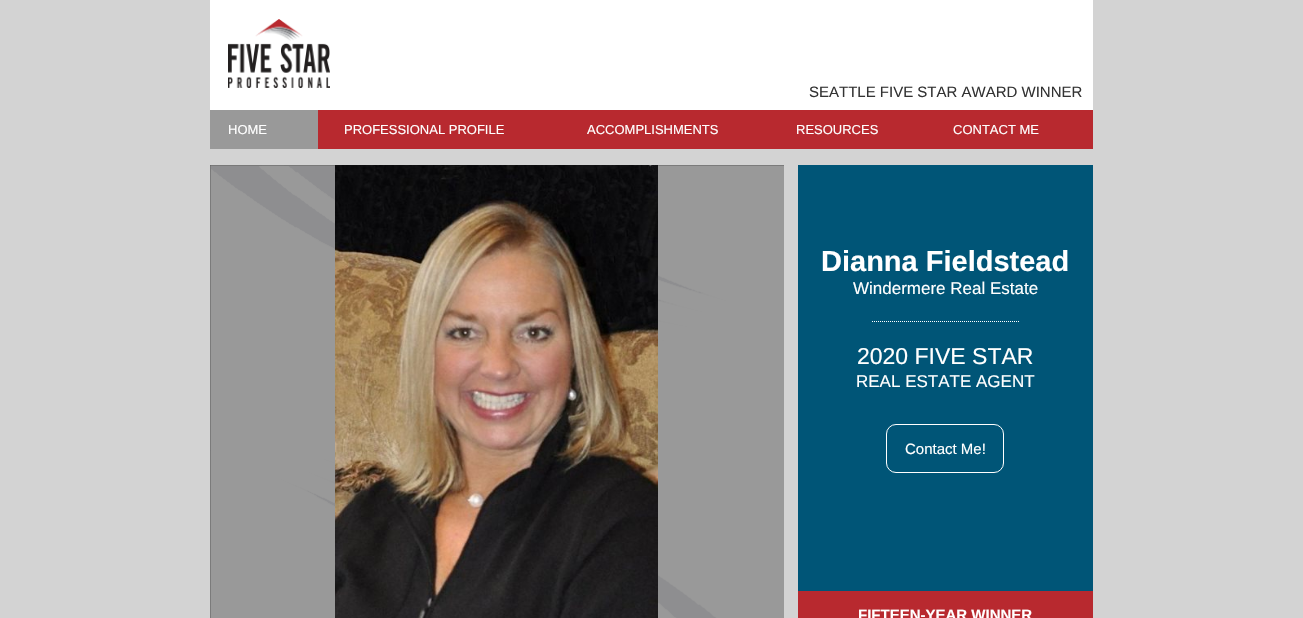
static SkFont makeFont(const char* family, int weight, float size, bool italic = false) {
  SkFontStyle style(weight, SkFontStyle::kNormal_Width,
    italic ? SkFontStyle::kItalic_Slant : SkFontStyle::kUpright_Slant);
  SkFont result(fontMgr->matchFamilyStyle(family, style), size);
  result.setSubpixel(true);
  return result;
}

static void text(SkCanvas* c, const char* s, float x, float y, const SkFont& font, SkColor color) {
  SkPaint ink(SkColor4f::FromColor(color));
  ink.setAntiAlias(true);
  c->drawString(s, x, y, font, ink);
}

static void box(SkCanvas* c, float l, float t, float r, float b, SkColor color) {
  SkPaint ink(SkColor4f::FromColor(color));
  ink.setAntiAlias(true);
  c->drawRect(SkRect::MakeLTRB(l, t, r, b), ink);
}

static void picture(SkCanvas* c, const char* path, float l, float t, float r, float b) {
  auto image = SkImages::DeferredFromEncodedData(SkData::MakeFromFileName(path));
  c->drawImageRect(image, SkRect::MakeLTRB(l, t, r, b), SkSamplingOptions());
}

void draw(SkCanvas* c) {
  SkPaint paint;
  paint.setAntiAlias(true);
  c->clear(0xffd3d3d3);
  box(c, 210, 0, 1093, 110, 0xffffffff);
  picture(c, "img_01.png", 228, 19, 330, 88);
  SkFont face1 = makeFont("Liberation Sans", 400, 15);
  text(c, "SEATTLE FIVE STAR AWARD WINNER", 809, 97, face1, 0xff333333);
  box(c, 318, 110, 1093, 149, 0xffb8292f);
  box(c, 210, 110, 318, 149, 0xff999999);
  SkFont face2 = makeFont("Liberation Sans", 400, 13);
  text(c, "HOME", 228, 134, face2, 0xffffffff);
  text(c, "PROFESSIONAL PROFILE", 344, 134, face2, 0xffffffff);
  text(c, "ACCOMPLISHMENTS", 587, 134, face2, 0xffffffff);
  text(c, "RESOURCES", 796, 134, face2, 0xffffffff);
  text(c, "CONTACT ME", 953, 134, face2, 0xffffffff);
  picture(c, "img_02.png", 210, 165, 784, 618);
  picture(c, "img_03.png", 335, 165, 658, 618);
  box(c, 798, 165, 1093, 591, 0xff005577);
  SkFont face3 = makeFont("Liberation Sans", 700, 29);
  text(c, "Dianna Fieldstead", 821, 271, face3, 0xffffffff);
  SkFont face4 = makeFont("Liberation Sans", 400, 17);
  text(c, "Windermere Real Estate", 853, 294, face4, 0xffffffff);
  paint.setStyle(SkPaint::kStroke_Style);
  paint.setStrokeWidth(1);
  paint.setColor(0xffffffff);
  paint.setPathEffect(SkDashPathEffect::Make({{1, 1}}, 0));
  c->drawPath(SkPathBuilder().moveTo(872, 321.5f).lineTo(1019, 321.5f).detach(), paint);
  paint.setPathEffect(nullptr);
  SkFont face5 = makeFont("Liberation Sans", 400, 23);
  text(c, "2020 FIVE STAR", 857, 364, face5, 0xffffffff);
  text(c, "REAL ESTATE AGENT", 856, 387, face4, 0xffffffff);
  c->drawRoundRect(SkRect::MakeLTRB(886.5f, 424.5f, 1003.5f, 472.5f), 9.5f, 9.5f, paint);
  text(c, "Contact Me!", 905, 454, face1, 0xffffffff);
  box(c, 798, 591, 1093, 618, 0xffb8292f);
  SkFont face6 = makeFont("Liberation Sans", 700, 15);
  text(c, "FIFTEEN-YEAR WINNER", 858, 620, face6, 0xffffffff);
}
